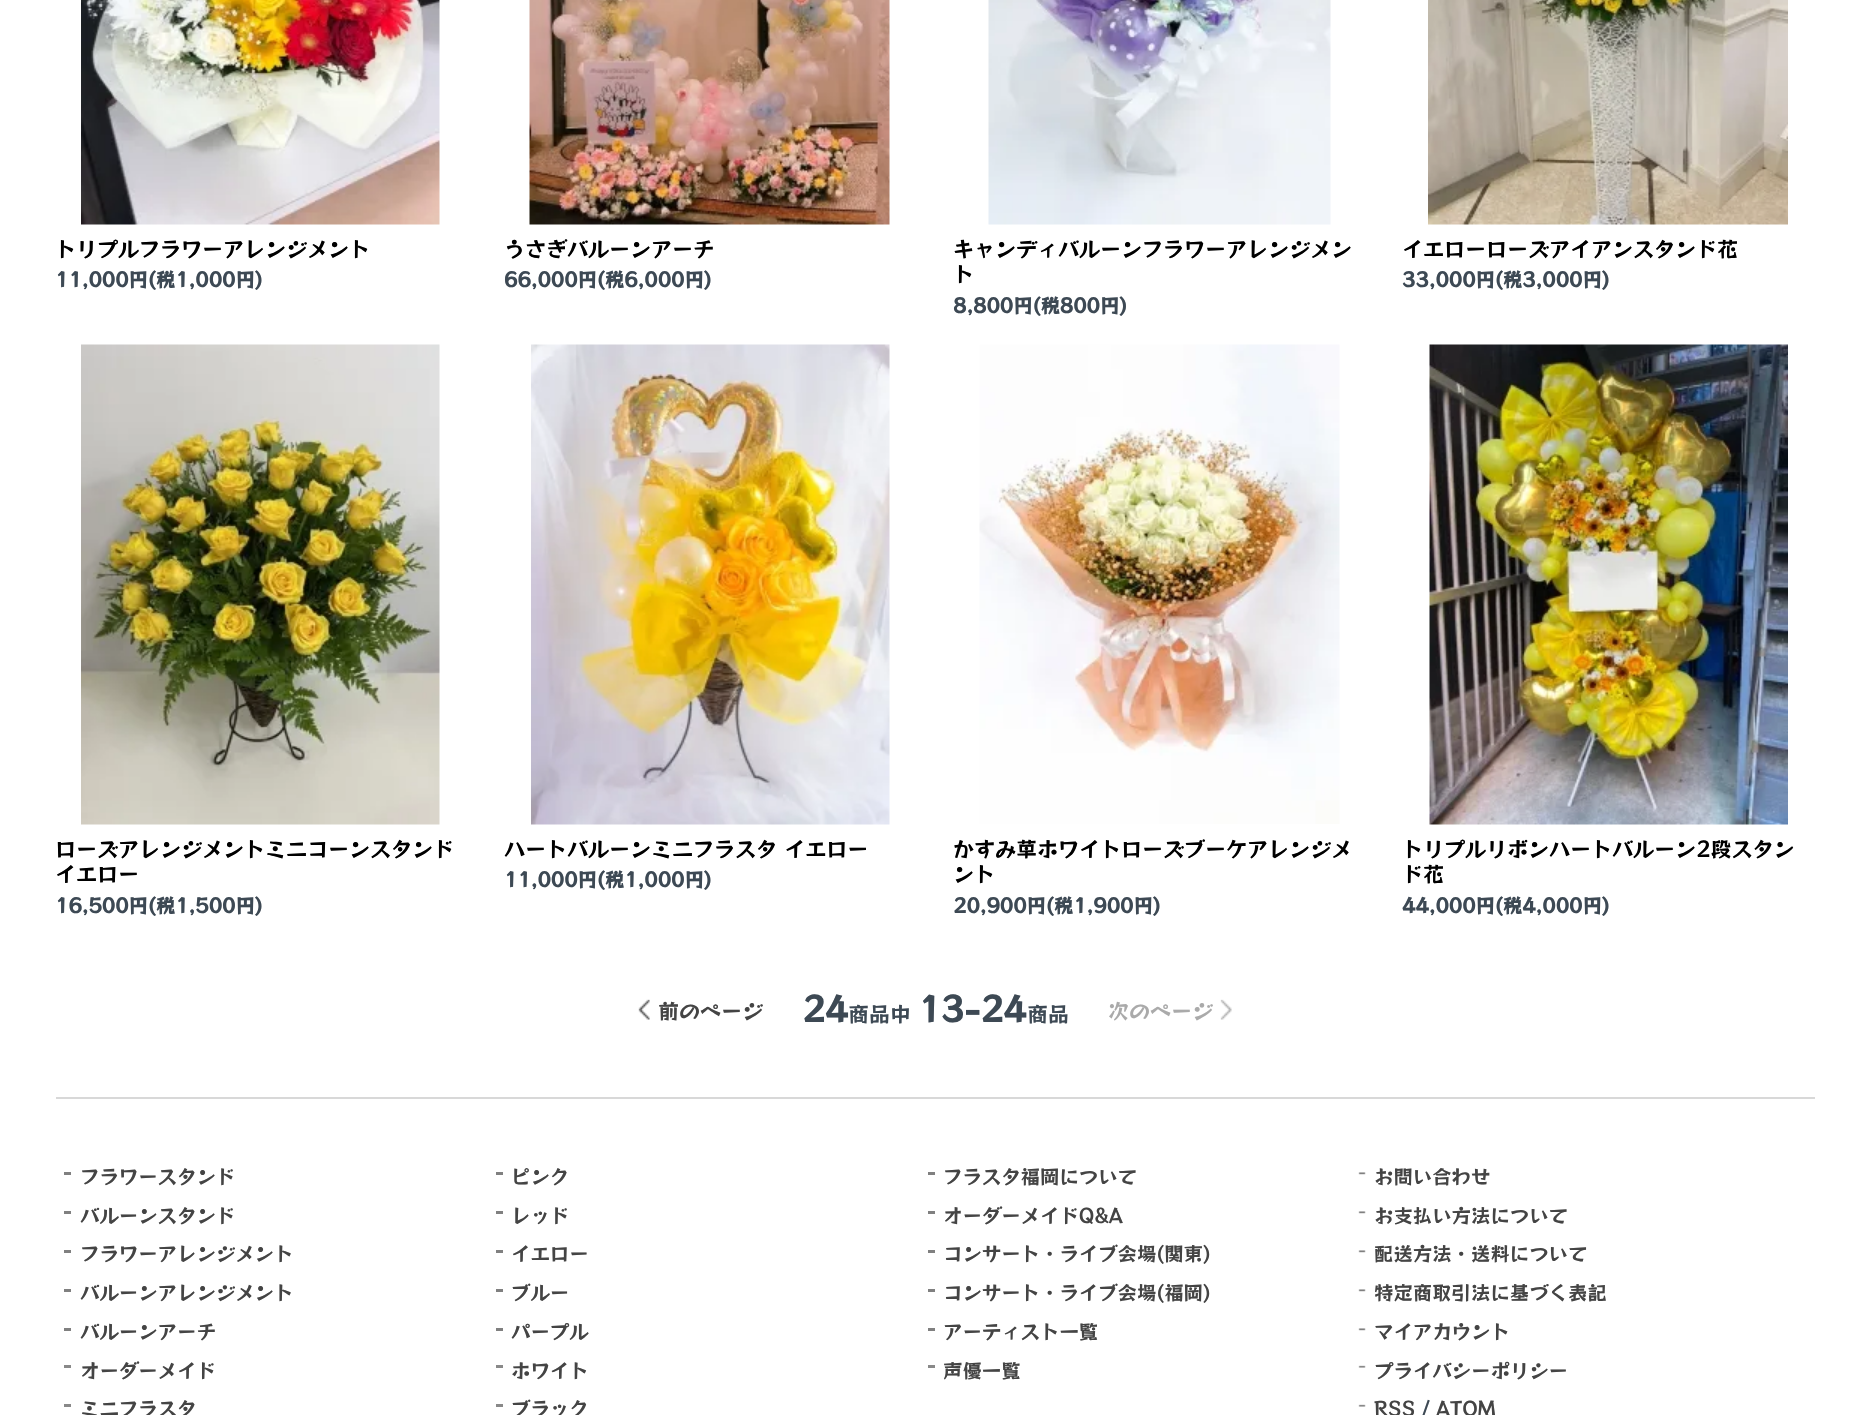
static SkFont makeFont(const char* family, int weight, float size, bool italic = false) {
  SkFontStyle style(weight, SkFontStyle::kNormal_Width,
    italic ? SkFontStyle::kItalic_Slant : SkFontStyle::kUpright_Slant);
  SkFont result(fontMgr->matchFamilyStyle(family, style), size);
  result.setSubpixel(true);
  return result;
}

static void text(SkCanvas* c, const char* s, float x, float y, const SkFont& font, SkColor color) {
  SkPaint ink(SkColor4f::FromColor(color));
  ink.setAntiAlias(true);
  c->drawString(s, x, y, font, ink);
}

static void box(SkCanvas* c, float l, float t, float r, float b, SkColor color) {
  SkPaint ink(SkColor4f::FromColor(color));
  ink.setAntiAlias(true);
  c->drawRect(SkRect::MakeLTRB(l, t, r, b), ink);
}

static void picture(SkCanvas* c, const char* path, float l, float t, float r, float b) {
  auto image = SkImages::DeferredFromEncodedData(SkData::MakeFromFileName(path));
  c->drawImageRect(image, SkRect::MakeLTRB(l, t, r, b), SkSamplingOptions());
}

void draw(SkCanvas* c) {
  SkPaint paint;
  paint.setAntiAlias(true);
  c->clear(0xffffffff);
  picture(c, "img_01.png", 81, 0, 440, 225);
  SkFont face1 = makeFont("RocknRoll One", 400, 21);
  text(c, "トリプルフラワーアレンジメント", 55, 257, face1, 0xff000000);
  SkFont face2 = makeFont("RocknRoll One", 700, 19.4f);
  text(c, "11,000円(税1,000円)", 55, 287, face2, 0xff3d4954);
  picture(c, "img_02.png", 529, 0, 890, 225);
  text(c, "うさぎバルーンアーチ", 504, 257, face1, 0xff000000);
  text(c, "66,000円(税6,000円)", 504, 287, face2, 0xff3d4954);
  picture(c, "img_03.png", 988, 0, 1331, 225);
  text(c, "キャンディバルーンフラワーアレンジメン", 953, 257, face1, 0xff000000);
  text(c, "ト", 953, 282, face1, 0xff000000);
  text(c, "8,800円(税800円)", 953, 313, face2, 0xff3d4954);
  picture(c, "img_04.png", 1428, 0, 1788, 225);
  text(c, "イエローローズアイアンスタンド花", 1402, 257, face1, 0xff000000);
  text(c, "33,000円(税3,000円)", 1402, 287, face2, 0xff3d4954);
  picture(c, "img_05.png", 81, 344, 440, 825);
  text(c, "ローズアレンジメントミニコーンスタンド", 55, 857, face1, 0xff000000);
  text(c, "イエロー", 55, 882, face1, 0xff000000);
  text(c, "16,500円(税1,500円)", 55, 913, face2, 0xff3d4954);
  picture(c, "img_06.png", 531, 344, 890, 825);
  text(c, "ハートバルーンミニフラスタ イエロー", 504, 857, face1, 0xff000000);
  text(c, "11,000円(税1,000円)", 504, 887, face2, 0xff3d4954);
  picture(c, "img_07.png", 979, 344, 1340, 824);
  text(c, "かすみ草ホワイトローズブーケアレンジメ", 953, 857, face1, 0xff000000);
  text(c, "ント", 953, 882, face1, 0xff000000);
  text(c, "20,900円(税1,900円)", 953, 913, face2, 0xff3d4954);
  picture(c, "img_08.png", 1429, 344, 1788, 825);
  text(c, "トリプルリボンハートバルーン2段スタン", 1402, 857, face1, 0xff000000);
  text(c, "ド花", 1402, 882, face1, 0xff000000);
  text(c, "44,000円(税4,000円)", 1402, 913, face2, 0xff3d4954);
  picture(c, "img_09.png", 638, 999, 650, 1020);
  text(c, "前のページ", 658, 1019, face1, 0xff444444);
  SkFont face3 = makeFont("RocknRoll One", 700, 33.5f);
  text(c, "24", 802, 1022, face3, 0xff3d4954);
  text(c, "商品中", 848, 1022, face1, 0xff3d4954);
  text(c, "13-24", 918, 1022, face3, 0xff3d4954);
  text(c, "商品", 1027, 1022, face1, 0xff3d4954);
  text(c, "次のページ", 1108, 1019, face1, 0xffaaaaaa);
  picture(c, "img_10.png", 1220, 999, 1232, 1020);
  box(c, 56, 1097, 1815, 1099, 0xffd8d8d8);
  box(c, 64, 1172, 71, 1175, 0xff808080);
  SkFont face4 = makeFont("RocknRoll One", 400, 19.4f);
  text(c, "フラワースタンド", 80, 1184, face4, 0xff444444);
  box(c, 64, 1211, 71, 1214, 0xff808080);
  text(c, "バルーンスタンド", 80, 1223, face4, 0xff444444);
  box(c, 64, 1250, 71, 1253, 0xff808080);
  text(c, "フラワーアレンジメント", 80, 1261, face4, 0xff444444);
  box(c, 64, 1289, 71, 1292, 0xff808080);
  text(c, "バルーンアレンジメント", 80, 1300, face4, 0xff444444);
  box(c, 64, 1328, 71, 1331, 0xff808080);
  text(c, "バルーンアーチ", 80, 1339, face4, 0xff444444);
  box(c, 64, 1365, 71, 1368, 0xff898989);
  text(c, "オーダーメイド", 80, 1378, face4, 0xff444444);
  box(c, 64, 1404, 71, 1407, 0xff898989);
  text(c, "ミニフラスタ", 80, 1416, face4, 0xff444444);
  box(c, 496, 1172, 503, 1175, 0xff808080);
  text(c, "ピンク", 511, 1184, face4, 0xff444444);
  box(c, 496, 1211, 503, 1214, 0xff808080);
  text(c, "レッド", 511, 1223, face4, 0xff444444);
  box(c, 496, 1250, 503, 1253, 0xff808080);
  text(c, "イエロー", 511, 1261, face4, 0xff444444);
  box(c, 496, 1289, 503, 1292, 0xff808080);
  text(c, "ブルー", 511, 1300, face4, 0xff444444);
  box(c, 496, 1328, 503, 1331, 0xff808080);
  text(c, "パープル", 511, 1339, face4, 0xff444444);
  box(c, 496, 1365, 503, 1368, 0xff898989);
  text(c, "ホワイト", 511, 1378, face4, 0xff444444);
  box(c, 496, 1404, 503, 1407, 0xff898989);
  text(c, "ブラック", 511, 1416, face4, 0xff444444);
  box(c, 928, 1172, 935, 1175, 0xff808080);
  text(c, "フラスタ福岡について", 943, 1184, face4, 0xff444444);
  box(c, 928, 1211, 935, 1214, 0xff808080);
  text(c, "オーダーメイドQ&A", 943, 1223, face4, 0xff444444);
  box(c, 928, 1250, 935, 1253, 0xff808080);
  text(c, "コンサート・ライブ会場(関東)", 943, 1261, face4, 0xff444444);
  box(c, 928, 1289, 935, 1292, 0xff808080);
  text(c, "コンサート・ライブ会場(福岡)", 943, 1300, face4, 0xff444444);
  box(c, 928, 1328, 935, 1331, 0xff808080);
  text(c, "アーティスト一覧", 943, 1339, face4, 0xff444444);
  box(c, 928, 1365, 935, 1368, 0xff898989);
  text(c, "声優一覧", 943, 1378, face4, 0xff444444);
  picture(c, "img_11.png", 1358, 1172, 1366, 1175);
  text(c, "お問い合わせ", 1374, 1184, face4, 0xff444444);
  picture(c, "img_11.png", 1358, 1211, 1366, 1214);
  text(c, "お支払い方法について", 1374, 1223, face4, 0xff444444);
  picture(c, "img_11.png", 1358, 1250, 1366, 1253);
  text(c, "配送方法・送料について", 1374, 1261, face4, 0xff444444);
  picture(c, "img_11.png", 1358, 1289, 1366, 1292);
  text(c, "特定商取引法に基づく表記", 1374, 1300, face4, 0xff444444);
  picture(c, "img_11.png", 1358, 1328, 1366, 1331);
  text(c, "マイアカウント", 1374, 1339, face4, 0xff444444);
  picture(c, "img_12.png", 1358, 1365, 1366, 1368);
  text(c, "プライバシーポリシー", 1374, 1378, face4, 0xff444444);
  picture(c, "img_12.png", 1358, 1404, 1366, 1407);
  text(c, "RSS", 1374, 1416, face4, 0xff444444);
  text(c, "/", 1422, 1416, face4, 0xff3d4954);
  text(c, "ATOM", 1436, 1416, face4, 0xff444444);
}
